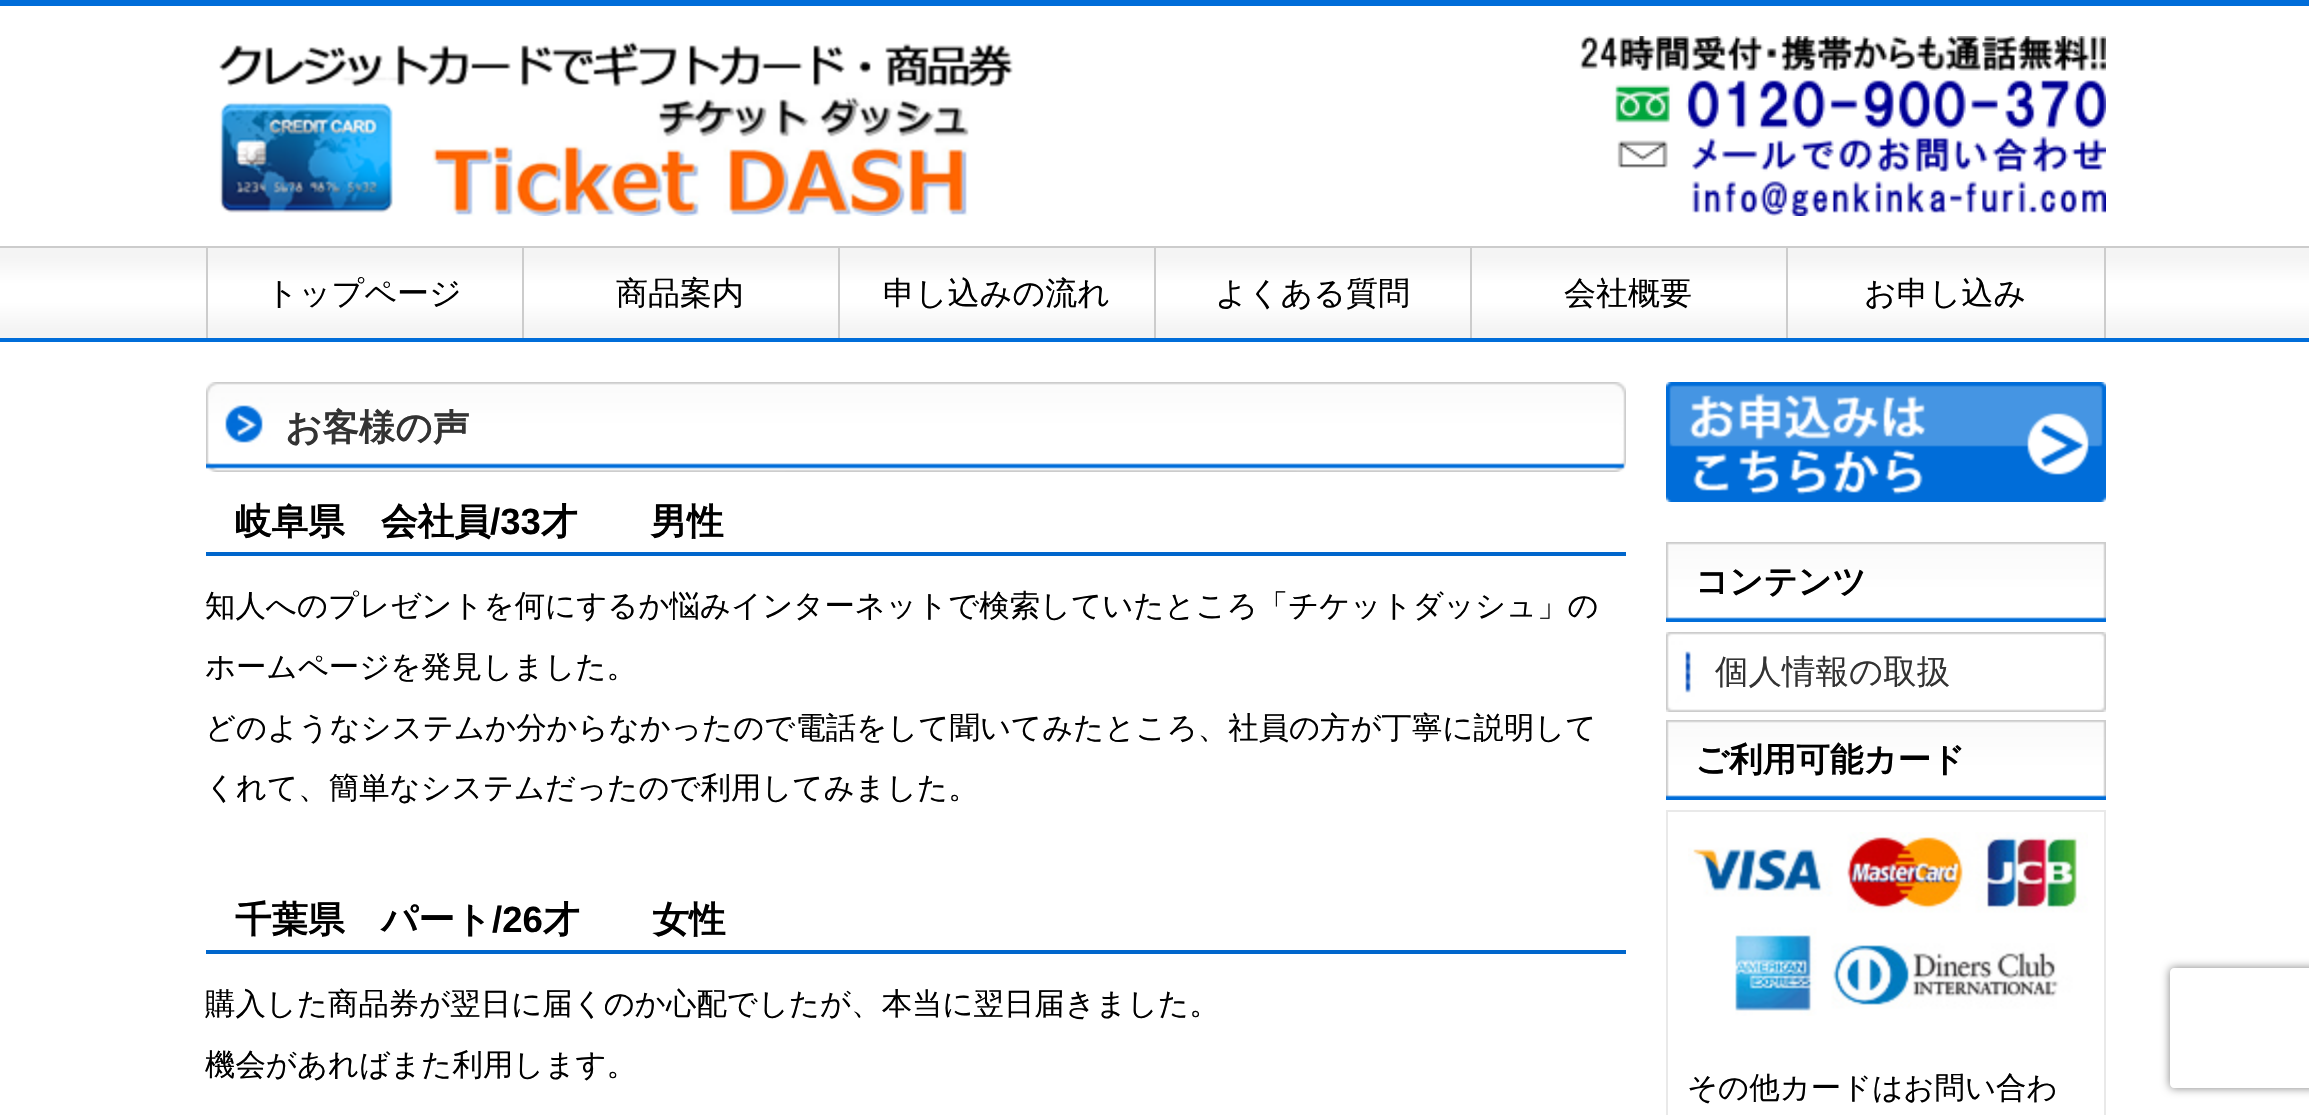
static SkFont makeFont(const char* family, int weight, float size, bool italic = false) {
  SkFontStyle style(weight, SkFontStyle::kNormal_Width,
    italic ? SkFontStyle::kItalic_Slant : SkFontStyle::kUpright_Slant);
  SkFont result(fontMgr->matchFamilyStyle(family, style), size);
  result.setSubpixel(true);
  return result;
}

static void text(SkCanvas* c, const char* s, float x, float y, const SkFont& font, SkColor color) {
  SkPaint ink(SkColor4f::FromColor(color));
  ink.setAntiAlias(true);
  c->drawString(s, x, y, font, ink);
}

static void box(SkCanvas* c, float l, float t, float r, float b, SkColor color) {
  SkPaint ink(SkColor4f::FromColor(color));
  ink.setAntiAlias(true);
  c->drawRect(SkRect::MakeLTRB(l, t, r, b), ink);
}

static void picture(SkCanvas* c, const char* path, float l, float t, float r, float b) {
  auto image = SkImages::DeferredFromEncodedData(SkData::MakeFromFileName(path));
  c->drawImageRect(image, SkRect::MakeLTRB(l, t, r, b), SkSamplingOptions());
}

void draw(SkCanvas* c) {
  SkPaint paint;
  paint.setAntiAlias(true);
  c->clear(0xffffffff);
  box(c, 0, 0, 2309, 6, 0xff006dd9);
  picture(c, "img_01.png", 219, 41, 1013, 216);
  picture(c, "img_02.png", 1579, 36, 2106, 216);
  {
    const SkColor colors[] = {0xfff4f4f4, 0xffffffff, 0xffffffff, 0xfff4f4f4};
    const float stops[] = {0.1f, 0.4f, 0.6f, 0.9f};
    const SkPoint ends[] = {{1155, 248}, {1155, 338}};
    paint.setShader(SkGradientShader::MakeLinear(ends, colors, stops, 4, SkTileMode::kClamp));
    paint.setAlpha(255);
  }
  c->drawRect(SkRect::MakeLTRB(0, 248, 2309, 338), paint);
  box(c, 0, 246, 2309, 248, 0xffcccccc);
  box(c, 0, 338, 2309, 342, 0xff006dd9);
  box(c, 206, 248, 208, 338, 0xffcccccc);
  SkFont face1 = makeFont("WenQuanYi Zen Hei", 500, 32);
  text(c, "トップページ", 266, 304, face1, 0xff000000);
  box(c, 522, 248, 524, 338, 0xffcccccc);
  text(c, "商品案内", 616, 304, face1, 0xff000000);
  box(c, 838, 248, 840, 338, 0xffcccccc);
  text(c, "申し込みの流れ", 883, 304, face1, 0xff000000);
  box(c, 1154, 248, 1156, 338, 0xffcccccc);
  text(c, "よくある質問", 1215, 304, face1, 0xff000000);
  box(c, 1470, 248, 1472, 338, 0xffcccccc);
  text(c, "会社概要", 1564, 304, face1, 0xff000000);
  box(c, 2104, 248, 2106, 338, 0xffcccccc);
  box(c, 1786, 248, 1788, 338, 0xffcccccc);
  text(c, "お申し込み", 1864, 304, face1, 0xff000000);
  picture(c, "img_03.png", 206, 382, 1626, 472);
  SkFont face2 = makeFont("WenQuanYi Zen Hei", 700, 36.5f);
  text(c, "お客様の声", 285, 440, face2, 0xff333333);
  box(c, 206, 552, 1626, 556, 0xff0066cc);
  text(c, "岐阜県　会社員", 235, 534, face2, 0xff000000);
  SkFont face3 = makeFont("Liberation Sans", 700, 36.5f);
  text(c, "/33", 490, 534, face3, 0xff000000);
  text(c, "才　　男性", 541, 534, face2, 0xff000000);
  SkFont face4 = makeFont("WenQuanYi Zen Hei", 500, 30.4f);
  text(c, "知人へのプレゼントを何にするか悩みインターネットで検索していたところ「チケットダッシュ」の", 205, 616, face4, 0xff000000);
  text(c, "ホームページを発見しました。", 205, 677, face4, 0xff000000);
  text(c, "どのようなシステムか分からなかったので電話をして聞いてみたところ、社員の方が丁寧に説明して", 205, 738, face4, 0xff000000);
  text(c, "くれて、簡単なシステムだったので利用してみました。", 205, 798, face4, 0xff000000);
  box(c, 206, 950, 1626, 954, 0xff0066cc);
  text(c, "千葉県　パート", 235, 932, face2, 0xff000000);
  text(c, "/26", 492, 932, face3, 0xff000000);
  text(c, "才　　女性", 543, 932, face2, 0xff000000);
  text(c, "購入した商品券が翌日に届くのか心配でしたが、本当に翌日届きました。", 205, 1014, face4, 0xff000000);
  text(c, "機会があればまた利用します。", 205, 1075, face4, 0xff000000);
  picture(c, "img_04.png", 1666, 382, 2106, 502);
  picture(c, "img_05.png", 1666, 542, 2106, 622);
  SkFont face5 = makeFont("WenQuanYi Zen Hei", 700, 33.5f);
  text(c, "コンテンツ", 1695, 593, face5, 0xff000000);
  picture(c, "img_06.png", 1666, 632, 2106, 712);
  SkFont face6 = makeFont("WenQuanYi Zen Hei", 500, 33.5f);
  text(c, "個人情報の取扱", 1715, 683, face6, 0xff333333);
  picture(c, "img_05.png", 1666, 720, 2106, 800);
  text(c, "ご利用可能カード", 1695, 771, face5, 0xff000000);
  paint.setStyle(SkPaint::kStroke_Style);
  paint.setStrokeWidth(2);
  paint.setShader(nullptr);
  paint.setColor(0xffe9e9e9);
  c->drawRect(SkRect::MakeLTRB(1667, 811, 2105, 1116), paint);
  picture(c, "img_07.png", 1688, 832, 2088, 1016);
  text(c, "その他カードはお問い合わ", 1687, 1098, face4, 0xff000000);
  c->save();
  c->clipPath(SkPathBuilder(SkPathFillType::kEvenOdd).moveTo(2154, 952).lineTo(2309, 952).lineTo(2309, 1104).lineTo(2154, 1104).close().moveTo(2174, 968).lineTo(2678, 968).cubicTo(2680, 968, 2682, 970, 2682, 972).lineTo(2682, 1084).cubicTo(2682, 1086, 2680, 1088, 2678, 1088).lineTo(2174, 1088).cubicTo(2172, 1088, 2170, 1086, 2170, 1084).lineTo(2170, 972).cubicTo(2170, 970, 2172, 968, 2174, 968).close().detach(), true);
  paint.setStyle(SkPaint::kFill_Style);
  paint.setColor(0xff808080);
  paint.setMaskFilter(SkMaskFilter::MakeBlur(kNormal_SkBlurStyle, 5));
  c->drawRoundRect(SkRect::MakeLTRB(2170, 968, 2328, 1088), 4, 4, paint);
  paint.setMaskFilter(nullptr);
  c->restore();
}
